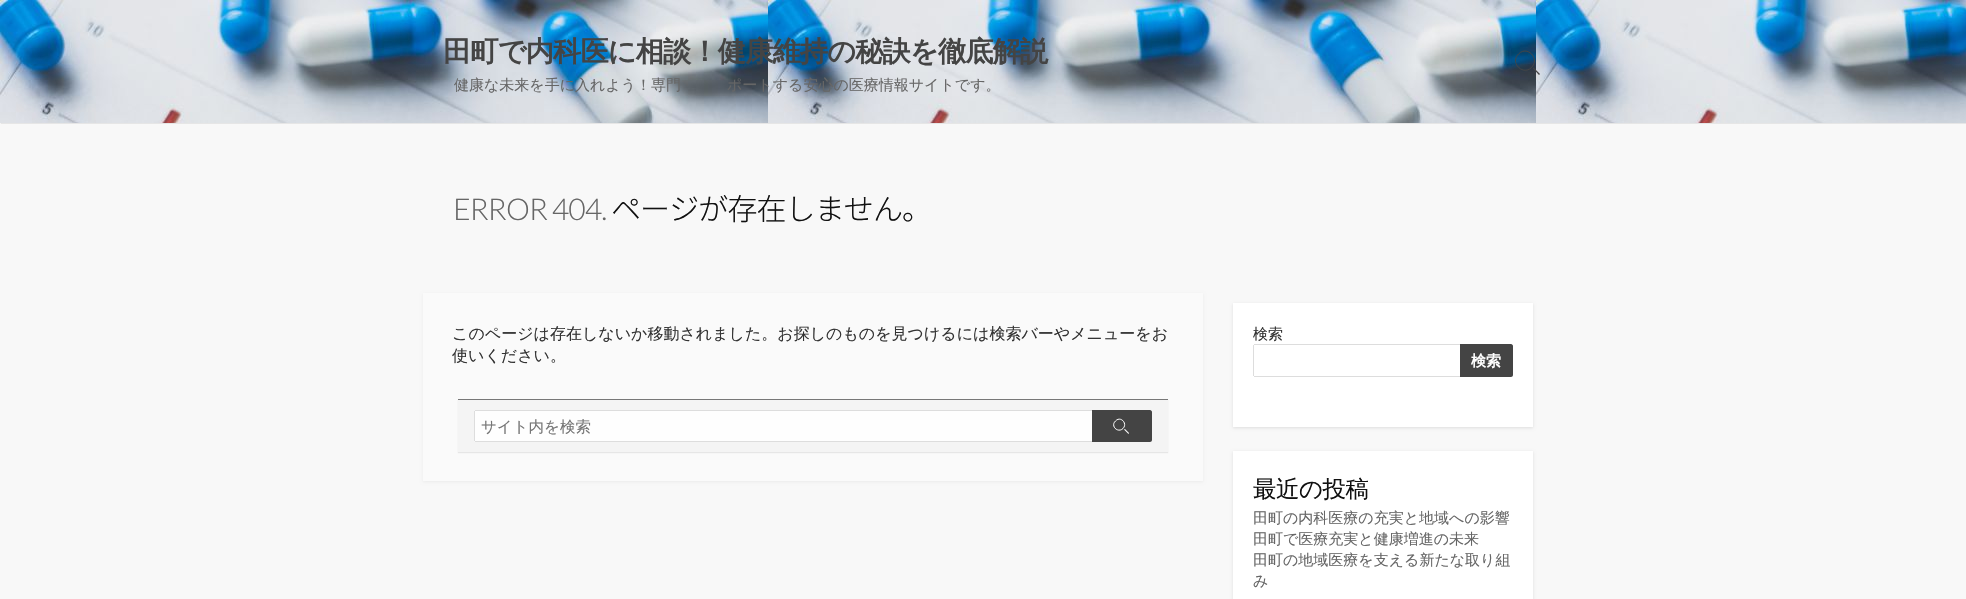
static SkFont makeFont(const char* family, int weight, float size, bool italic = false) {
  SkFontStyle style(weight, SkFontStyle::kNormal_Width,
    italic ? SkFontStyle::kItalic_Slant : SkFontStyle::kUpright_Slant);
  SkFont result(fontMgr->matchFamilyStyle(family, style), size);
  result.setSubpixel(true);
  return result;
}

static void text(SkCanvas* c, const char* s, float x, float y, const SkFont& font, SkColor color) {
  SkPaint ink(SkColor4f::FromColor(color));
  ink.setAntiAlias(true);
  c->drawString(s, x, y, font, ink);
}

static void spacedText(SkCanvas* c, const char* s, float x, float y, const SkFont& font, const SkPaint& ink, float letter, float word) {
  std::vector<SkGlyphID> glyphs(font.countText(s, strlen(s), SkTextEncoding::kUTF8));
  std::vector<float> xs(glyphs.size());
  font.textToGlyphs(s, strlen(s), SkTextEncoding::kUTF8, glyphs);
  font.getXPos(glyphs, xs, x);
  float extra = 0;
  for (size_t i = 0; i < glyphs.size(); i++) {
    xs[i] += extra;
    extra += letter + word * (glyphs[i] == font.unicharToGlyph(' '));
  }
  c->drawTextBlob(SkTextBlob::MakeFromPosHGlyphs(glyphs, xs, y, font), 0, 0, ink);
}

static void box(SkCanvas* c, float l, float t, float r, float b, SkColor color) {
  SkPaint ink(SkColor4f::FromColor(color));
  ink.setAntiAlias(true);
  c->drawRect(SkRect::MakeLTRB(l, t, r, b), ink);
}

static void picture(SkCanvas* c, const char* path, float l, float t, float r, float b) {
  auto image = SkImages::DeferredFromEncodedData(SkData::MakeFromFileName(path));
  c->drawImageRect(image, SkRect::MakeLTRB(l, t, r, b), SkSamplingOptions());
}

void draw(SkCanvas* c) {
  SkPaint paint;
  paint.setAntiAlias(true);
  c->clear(0xfff8f8f8);
  paint.setColor(0x66000000);
  paint.setMaskFilter(SkMaskFilter::MakeBlur(kNormal_SkBlurStyle, 0.5f));
  c->drawRect(SkRect::MakeLTRB(1, 0, 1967, 123), paint);
  paint.setMaskFilter(nullptr);
  picture(c, "img_01.png", 0, 0, 1966, 123);
  SkFont face1 = makeFont("WenQuanYi Zen Hei", 700, 28.2f);
  paint.setColor(0xff444444);
  spacedText(c, "田町で内科医に相談！健康維持の秘訣を徹底解説", 443, 61, face1, paint, -0.85f, 0);
  SkFont face2 = makeFont("WenQuanYi Zen Hei", 500, 15);
  text(c, "健康な未来を手に入れよう！専門", 454, 90, face2, 0xff666666);
  text(c, "ポートする安心の医療情報サイトです。", 727, 90, face2, 0xff666666);
  paint.setStyle(SkPaint::kStroke_Style);
  paint.setStrokeWidth(1);
  c->drawPath(SkPathBuilder().moveTo(1518.5f, 54).cubicTo(1527, 45, 1540.5f, 58.5f, 1531.5f, 67.5f).cubicTo(1523, 76, 1509.5f, 63, 1518.5f, 54).close().detach(), paint);
  paint.setStyle(SkPaint::kFill_Style);
  c->drawPath(SkPathBuilder().moveTo(1533, 68.5f).lineTo(1533.5f, 67.5f).lineTo(1540, 74).lineTo(1539, 75).close().detach(), paint);
  SkFont face3 = makeFont("Lato", 300, 30);
  paint.setColor(0xff666666);
  spacedText(c, "ERROR 404.", 453, 220, face3, paint, -0.9f, 0);
  SkFont face4 = makeFont("Noto Sans CJK JP", 300, 30);
  paint.setColor(0xff111111);
  spacedText(c, "ページが存在しません。", 611, 220, face4, paint, -0.9f, 0);
  paint.setColor(0x0d000000);
  paint.setMaskFilter(SkMaskFilter::MakeBlur(kNormal_SkBlurStyle, 1.5f));
  c->drawRect(SkRect::MakeLTRB(423, 294, 1203, 482), paint);
  paint.setMaskFilter(nullptr);
  box(c, 423, 293, 1203, 481, 0xfffafafa);
  SkFont face5 = makeFont("WenQuanYi Zen Hei", 500, 16);
  text(c, "このページは存在しないか移動されました。お探しのものを見つけるには検索バーやメニューをお", 452, 339, face5, 0xff333333);
  text(c, "使いください。", 452, 361, face5, 0xff333333);
  paint.setColor(0x14000000);
  paint.setMaskFilter(SkMaskFilter::MakeBlur(kNormal_SkBlurStyle, 0.5f));
  c->drawRect(SkRect::MakeLTRB(458, 400, 1168, 453), paint);
  paint.setMaskFilter(nullptr);
  box(c, 458, 400, 1168, 452, 0xfff4f4f4);
  box(c, 458, 399, 1168, 400, 0xff777777);
  paint.setColor(0xfffefefe);
  c->drawPath(SkPathBuilder().moveTo(476, 410).lineTo(1092, 410).lineTo(1092, 442).lineTo(476, 442).cubicTo(475, 442, 474, 441, 474, 440).lineTo(474, 412).cubicTo(474, 411, 475, 410, 476, 410).close().detach(), paint);
  box(c, 475, 410, 1092, 411, 0xffdddddd);
  box(c, 475, 441, 1092, 442, 0xffdddddd);
  box(c, 474, 411, 475, 441, 0xffdddddd);
  SkFont face6 = makeFont("WenQuanYi Zen Hei", 500, 15.5f);
  text(c, "サイト内を検索", 481, 432, face6, 0xff757575);
  paint.setColor(0xff444444);
  c->drawPath(SkPathBuilder().moveTo(1092, 410).lineTo(1150, 410).cubicTo(1151, 410, 1152, 411, 1152, 412).lineTo(1152, 440).cubicTo(1152, 441, 1151, 442, 1150, 442).lineTo(1092, 442).close().detach(), paint);
  paint.setStyle(SkPaint::kStroke_Style);
  paint.setColor(0xffffffff);
  c->drawPath(SkPathBuilder().moveTo(1115.5f, 421).cubicTo(1120.5f, 415.5f, 1128, 423.5f, 1123, 428.5f).cubicTo(1118, 433.5f, 1110, 426, 1115.5f, 421).close().detach(), paint);
  paint.setStyle(SkPaint::kFill_Style);
  c->drawPath(SkPathBuilder().moveTo(1124, 429.5f).lineTo(1125, 429).lineTo(1129, 433).lineTo(1128.5f, 434).close().detach(), paint);
  paint.setColor(0x1a000000);
  paint.setMaskFilter(SkMaskFilter::MakeBlur(kNormal_SkBlurStyle, 1.5f));
  c->drawRect(SkRect::MakeLTRB(1233, 304, 1533, 428), paint);
  paint.setMaskFilter(nullptr);
  box(c, 1233, 303, 1533, 427, 0xffffffff);
  text(c, "検索", 1253, 339, face2, 0xff333333);
  box(c, 1254, 344, 1460, 345, 0xffdddddd);
  box(c, 1254, 376, 1460, 377, 0xffdddddd);
  box(c, 1253, 345, 1254, 376, 0xffdddddd);
  paint.setColor(0xff444444);
  c->drawPath(SkPathBuilder().moveTo(1460, 344).lineTo(1511, 344).cubicTo(1512, 344, 1513, 345, 1513, 346).lineTo(1513, 375).cubicTo(1513, 376, 1512, 377, 1511, 377).lineTo(1460, 377).close().detach(), paint);
  SkFont face7 = makeFont("WenQuanYi Zen Hei", 700, 15);
  text(c, "検索", 1471, 366, face7, 0xffffffff);
  paint.setColor(0x1a000000);
  paint.setMaskFilter(SkMaskFilter::MakeBlur(kNormal_SkBlurStyle, 1.5f));
  c->drawRect(SkRect::MakeLTRB(1233, 452, 1533, 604), paint);
  paint.setMaskFilter(nullptr);
  box(c, 1233, 451, 1533, 599, 0xffffffff);
  SkFont face8 = makeFont("WenQuanYi Zen Hei", 500, 23.5f);
  paint.setColor(0xff111111);
  spacedText(c, "最近の投稿", 1253, 497, face8, paint, -0.5f, 0);
  text(c, "田町の内科医療の充実と地域への影響", 1253, 523, face2, 0xff666666);
  text(c, "田町で医療充実と健康増進の未来", 1253, 544, face2, 0xff666666);
  text(c, "田町の地域医療を支える新たな取り組", 1253, 565, face2, 0xff666666);
  text(c, "み", 1253, 586, face2, 0xff666666);
}
